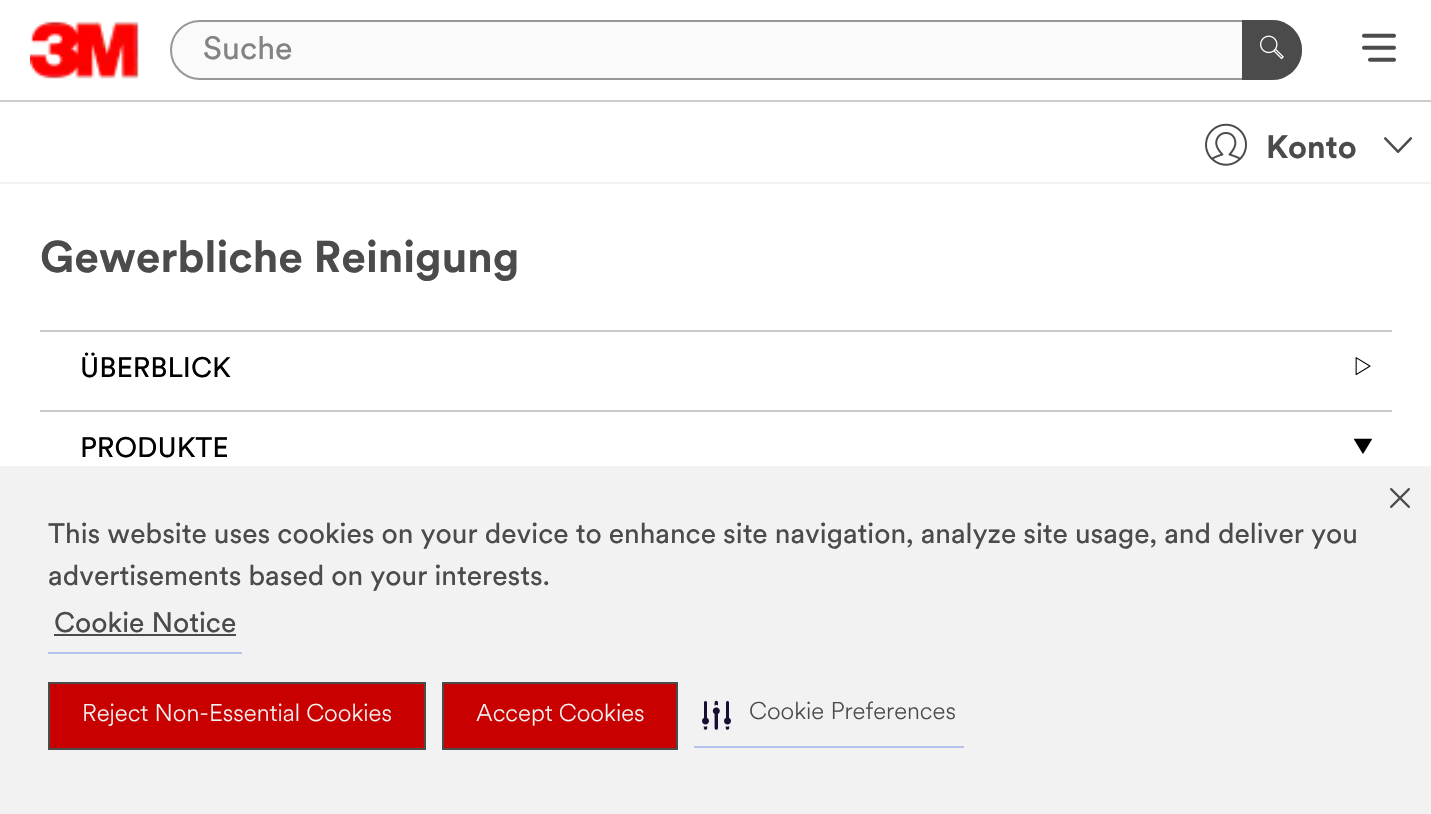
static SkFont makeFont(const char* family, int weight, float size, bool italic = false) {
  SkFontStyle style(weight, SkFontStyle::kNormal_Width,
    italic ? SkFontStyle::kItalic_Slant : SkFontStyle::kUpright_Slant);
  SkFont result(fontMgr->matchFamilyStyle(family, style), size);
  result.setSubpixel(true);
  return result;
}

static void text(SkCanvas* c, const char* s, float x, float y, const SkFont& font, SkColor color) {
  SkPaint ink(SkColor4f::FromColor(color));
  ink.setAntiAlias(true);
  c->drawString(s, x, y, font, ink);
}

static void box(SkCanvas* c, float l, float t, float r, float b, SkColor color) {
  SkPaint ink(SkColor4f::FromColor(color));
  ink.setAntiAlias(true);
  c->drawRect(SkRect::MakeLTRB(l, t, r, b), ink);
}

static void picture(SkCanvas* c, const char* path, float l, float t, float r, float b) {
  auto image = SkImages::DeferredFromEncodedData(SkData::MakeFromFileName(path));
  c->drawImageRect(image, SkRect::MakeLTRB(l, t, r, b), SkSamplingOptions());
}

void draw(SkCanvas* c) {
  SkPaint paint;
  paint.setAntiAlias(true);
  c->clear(0xffffffff);
  box(c, 0, 182, 1431, 184, 0xfff2f2f2);
  picture(c, "img_01.png", 30, 21, 139, 79);
  paint.setColor(0xfffafafa);
  c->drawRoundRect(SkRect::MakeLTRB(171, 21, 1301, 79), 29, 29, paint);
  paint.setStyle(SkPaint::kStroke_Style);
  paint.setStrokeWidth(2);
  paint.setColor(0xff979797);
  c->drawRoundRect(SkRect::MakeLTRB(171, 21, 1301, 79), 29, 29, paint);
  c->save();
  c->clipRect(SkRect::MakeLTRB(202, 36, 1232, 68));
  SkFont face1 = makeFont("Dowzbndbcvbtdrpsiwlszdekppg", 400, 32);
  text(c, "Suche", 203, 59, face1, 0xff838383);
  c->restore();
  paint.setStyle(SkPaint::kFill_Style);
  paint.setColor(0xff4b4b4b);
  c->drawPath(SkPathBuilder().moveTo(1242, 20).lineTo(1272, 20).cubicTo(1288.5f, 20, 1302, 33.5f, 1302, 50).cubicTo(1302, 66.5f, 1288.5f, 80, 1272, 80).lineTo(1242, 80).close().detach(), paint);
  picture(c, "img_02.png", 1260, 35, 1284, 60);
  picture(c, "img_03.png", 1362, 33, 1396, 62);
  box(c, 0, 100, 1431, 102, 0xffcccccc);
  picture(c, "img_04.png", 1205, 123, 1247, 166);
  SkFont face2 = makeFont("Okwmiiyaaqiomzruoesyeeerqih", 700, 32);
  text(c, "Konto", 1266, 158, face2, 0xff4b4b4b);
  picture(c, "img_05.png", 1384, 137, 1413, 153);
  SkFont face3 = makeFont("Okwmiiyaaqiomzruoesyeeerqih", 700, 44);
  text(c, "Gewerbliche Reinigung", 40, 272, face3, 0xff4b4b4b);
  box(c, 40, 330, 1392, 332, 0xffcbcbcb);
  SkFont face4 = makeFont("Dowzbndbcvbtdrpsiwlszdekppg", 400, 28);
  text(c, "ÜBERBLICK", 80, 377, face4, 0xff000000);
  picture(c, "img_06.png", 1355, 357, 1371, 376);
  box(c, 40, 410, 1392, 412, 0xffcbcbcb);
  text(c, "PRODUKTE", 80, 457, face4, 0xff000000);
  picture(c, "img_07.png", 1354, 438, 1372, 454);
  box(c, 0, 466, 1431, 814, 0xfff2f2f2);
  text(c, "This website uses cookies on your device to enhance site navigation, analyze site usage, and deliver you", 48, 543, face4, 0xff4b4b4b);
  text(c, "advertisements based on your interests.", 48, 585, face4, 0xff4b4b4b);
  box(c, 48, 652, 242, 654, 0xffb6c2e9);
  text(c, "Cookie Notice", 54, 632, face4, 0xff4b4b4b);
  box(c, 54, 634, 236, 636, 0xff4b4b4b);
  picture(c, "img_08.png", 1390, 488, 1410, 508);
  paint.setColor(0xffc80000);
  c->drawRect(SkRect::MakeLTRB(49, 683, 425, 749), paint);
  paint.setStyle(SkPaint::kStroke_Style);
  paint.setColor(0xff4b4b4b);
  c->drawRect(SkRect::MakeLTRB(49, 683, 425, 749), paint);
  SkFont face5 = makeFont("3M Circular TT", 300, 24);
  text(c, "Reject Non-Essential Cookies", 82, 721, face5, 0xfff2f2f2);
  paint.setStyle(SkPaint::kFill_Style);
  paint.setColor(0xffc80000);
  c->drawRect(SkRect::MakeLTRB(443, 683, 677, 749), paint);
  paint.setStyle(SkPaint::kStroke_Style);
  paint.setColor(0xff4b4b4b);
  c->drawRect(SkRect::MakeLTRB(443, 683, 677, 749), paint);
  text(c, "Accept Cookies", 476, 721, face5, 0xfff2f2f2);
  box(c, 694, 746, 964, 748, 0xffb6c2e9);
  picture(c, "img_09.png", 702, 700, 731, 730);
  text(c, "Cookie Preferences", 749, 719, face5, 0xff4b4b4b);
}
